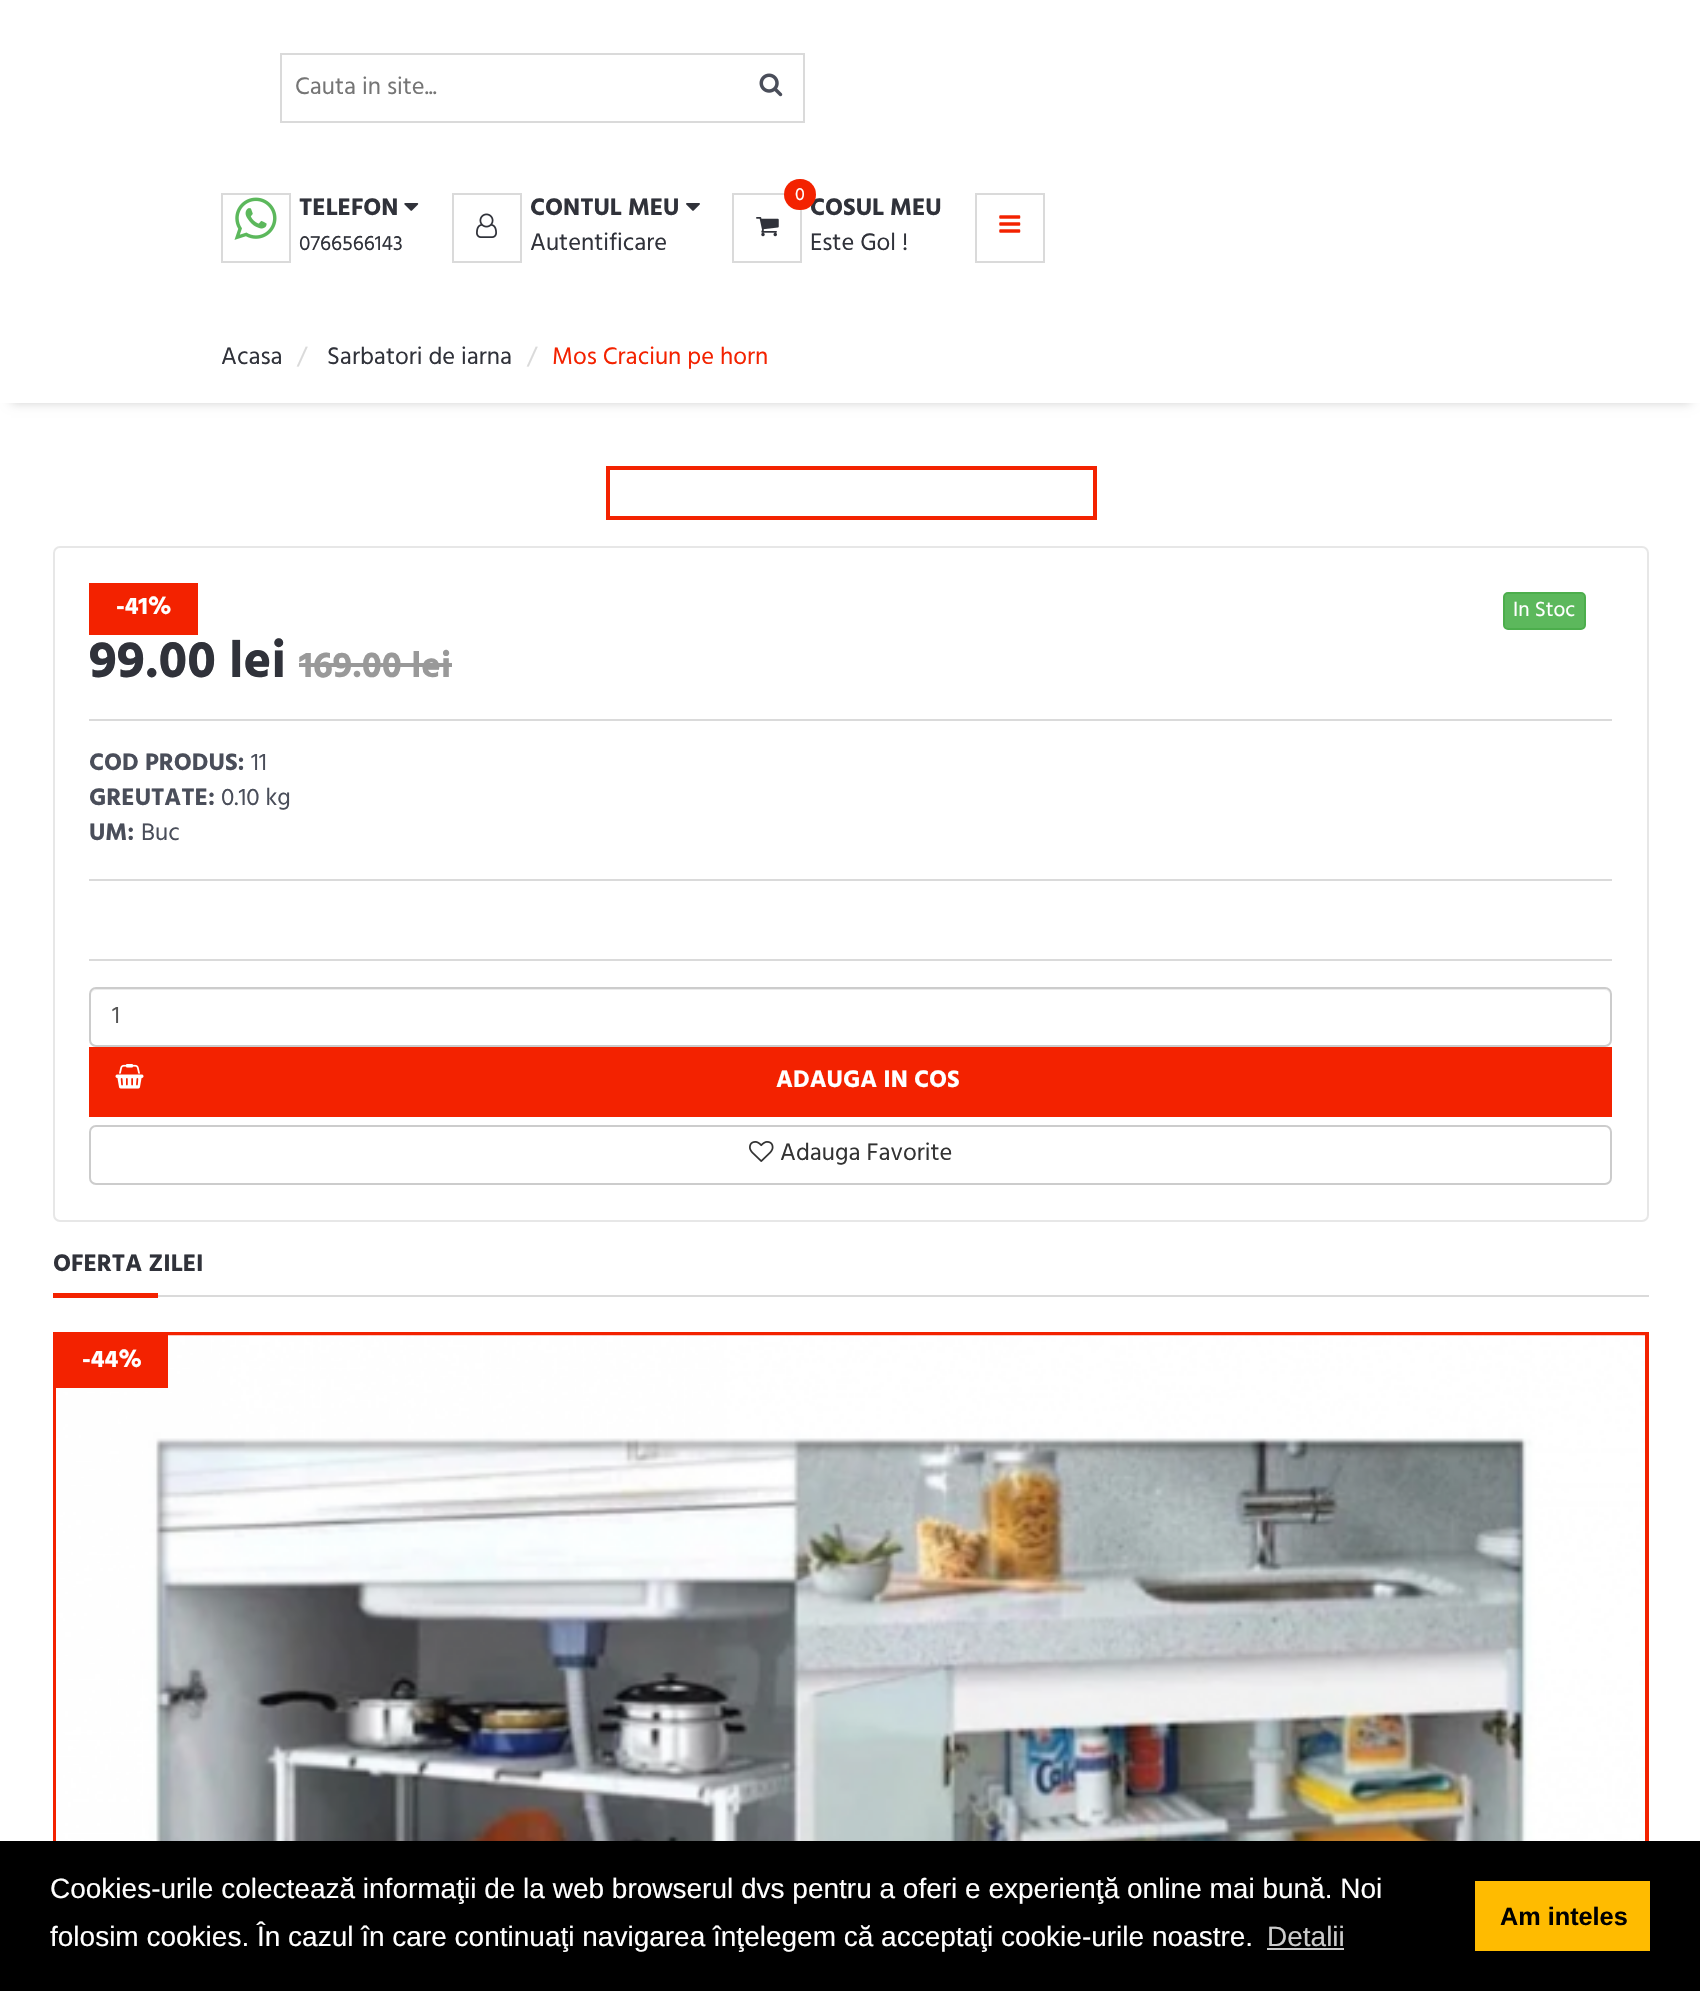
static SkFont makeFont(const char* family, int weight, float size, bool italic = false) {
  SkFontStyle style(weight, SkFontStyle::kNormal_Width,
    italic ? SkFontStyle::kItalic_Slant : SkFontStyle::kUpright_Slant);
  SkFont result(fontMgr->matchFamilyStyle(family, style), size);
  result.setSubpixel(true);
  return result;
}

static void text(SkCanvas* c, const char* s, float x, float y, const SkFont& font, SkColor color) {
  SkPaint ink(SkColor4f::FromColor(color));
  ink.setAntiAlias(true);
  c->drawString(s, x, y, font, ink);
}

static void box(SkCanvas* c, float l, float t, float r, float b, SkColor color) {
  SkPaint ink(SkColor4f::FromColor(color));
  ink.setAntiAlias(true);
  c->drawRect(SkRect::MakeLTRB(l, t, r, b), ink);
}

static void roundBox(SkCanvas* c, float l, float t, float r, float b, float radius, SkColor color) {
  SkPaint ink(SkColor4f::FromColor(color));
  ink.setAntiAlias(true);
  c->drawRoundRect(SkRect::MakeLTRB(l, t, r, b), radius, radius, ink);
}

static void picture(SkCanvas* c, const char* path, float l, float t, float r, float b) {
  auto image = SkImages::DeferredFromEncodedData(SkData::MakeFromFileName(path));
  c->drawImageRect(image, SkRect::MakeLTRB(l, t, r, b), SkSamplingOptions());
}

void draw(SkCanvas* c) {
  SkPaint paint;
  paint.setAntiAlias(true);
  c->clear(0xffffffff);
  paint.setStyle(SkPaint::kStroke_Style);
  paint.setStrokeWidth(2);
  paint.setColor(0xffdadada);
  c->drawRect(SkRect::MakeLTRB(281, 54, 804, 122), paint);
  SkFont face1 = makeFont("Hind", 400, 24.5f);
  text(c, "Cauta in site...", 295, 94, face1, 0xff757575);
  picture(c, "img_01.png", 759, 73, 783, 97);
  c->drawRect(SkRect::MakeLTRB(222, 194, 290, 262), paint);
  picture(c, "img_02.png", 234, 197, 277, 240);
  SkFont face2 = makeFont("Hind", 700, 24.5f);
  text(c, "TELEFON", 299, 215, face2, 0xff30323a);
  picture(c, "img_03.png", 404, 203, 419, 211);
  SkFont face3 = makeFont("Hind", 400, 21);
  text(c, "0766566143", 299, 250, face3, 0xff30323a);
  c->drawRect(SkRect::MakeLTRB(453, 194, 521, 262), paint);
  picture(c, "img_04.png", 476, 213, 497, 238);
  text(c, "CONTUL MEU", 530, 215, face2, 0xff30323a);
  picture(c, "img_05.png", 686, 203, 700, 211);
  text(c, "Autentificare", 530, 250, face1, 0xff30323a);
  c->drawRect(SkRect::MakeLTRB(733, 194, 801, 262), paint);
  text(c, "COSUL MEU", 810, 215, face2, 0xff30323a);
  roundBox(c, 784, 179, 816, 210, 15.5f, 0xfff32200);
  SkFont face4 = makeFont("Hind", 400, 18);
  text(c, "0", 795, 200, face4, 0xffffffff);
  picture(c, "img_06.png", 756, 217, 779, 237);
  text(c, "Este Gol !", 810, 250, face1, 0xff30323a);
  c->drawRect(SkRect::MakeLTRB(976, 194, 1044, 262), paint);
  picture(c, "img_07.png", 999, 215, 1021, 233);
  c->save();
  c->clipPath(SkPathBuilder(SkPathFillType::kEvenOdd).moveTo(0, 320).lineTo(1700, 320).lineTo(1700, 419).lineTo(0, 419).close().moveTo(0, 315).lineTo(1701, 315).lineTo(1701, 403).lineTo(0, 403).close().detach(), true);
  paint.setStyle(SkPaint::kFill_Style);
  paint.setColor(0x2e000000);
  paint.setMaskFilter(SkMaskFilter::MakeBlur(kNormal_SkBlurStyle, 5));
  c->drawRect(SkRect::MakeLTRB(11, 336, 1691, 403), paint);
  paint.setMaskFilter(nullptr);
  c->restore();
  text(c, "Acasa", 221, 364, face1, 0xff30323a);
  text(c, "/", 297, 364, face1, 0xffdadada);
  text(c, "Sarbatori de iarna", 327, 364, face1, 0xff30323a);
  text(c, "/", 527, 364, face1, 0xffdadada);
  text(c, "Mos Craciun pe horn", 552, 364, face1, 0xfff32200);
  paint.setStyle(SkPaint::kStroke_Style);
  paint.setStrokeWidth(4);
  paint.setColor(0xfff32200);
  c->drawRect(SkRect::MakeLTRB(608, 468, 1095, 518), paint);
  paint.setStrokeWidth(2);
  paint.setColor(0xffe7e7e7);
  c->drawRoundRect(SkRect::MakeLTRB(54, 547, 1648, 1221), 6, 6, paint);
  box(c, 89, 583, 198, 635, 0xfff32200);
  text(c, "-41%", 116, 614, face2, 0xffffffff);
  paint.setStyle(SkPaint::kFill_Style);
  paint.setColor(0xff5cb85c);
  c->drawRoundRect(SkRect::MakeLTRB(1504, 593, 1585, 629), 4, 4, paint);
  paint.setStyle(SkPaint::kStroke_Style);
  paint.setColor(0xff4cae4c);
  c->drawRoundRect(SkRect::MakeLTRB(1504, 593, 1585, 629), 4, 4, paint);
  text(c, "In Stoc", 1513, 616, face3, 0xffffffff);
  SkFont face5 = makeFont("Hind", 700, 52.5f);
  text(c, "99.00 lei", 89, 677, face5, 0xff30323a);
  SkFont face6 = makeFont("Hind", 700, 36.75f);
  text(c, "169.00 lei", 299, 677, face6, 0xff999999);
  box(c, 299, 663, 452, 667, 0xff999999);
  box(c, 89, 719, 1612, 721, 0xffdadada);
  text(c, "COD PRODUS:", 89, 770, face2, 0xff4a4e5a);
  text(c, "11", 251, 770, face1, 0xff4a4e5a);
  text(c, "GREUTATE:", 89, 805, face2, 0xff4a4e5a);
  text(c, "0.10 kg", 221, 805, face1, 0xff4a4e5a);
  text(c, "UM:", 89, 840, face2, 0xff4a4e5a);
  text(c, "Buc", 141, 840, face1, 0xff4a4e5a);
  box(c, 89, 879, 1612, 881, 0xffdadada);
  box(c, 89, 959, 1612, 961, 0xffdadada);
  paint.setStyle(SkPaint::kFill_Style);
  paint.setColor(0xffececec);
  c->drawPath(SkPathBuilder().moveTo(96, 990).lineTo(1605, 990).cubicTo(1608, 990, 1610, 993, 1610, 996).cubicTo(1610, 993, 1609, 989, 1605, 989).lineTo(96, 989).cubicTo(92, 989, 91, 993, 91, 996).cubicTo(91, 993, 93, 990, 96, 990).close().detach(), paint);
  paint.setStyle(SkPaint::kStroke_Style);
  paint.setColor(0xffcccccc);
  c->drawRoundRect(SkRect::MakeLTRB(90, 988, 1611, 1046), 6, 6, paint);
  text(c, "1", 112, 1023, face1, 0xff555555);
  box(c, 89, 1047, 1612, 1117, 0xfff32200);
  picture(c, "img_08.png", 115, 1064, 144, 1089);
  text(c, "ADAUGA IN COS", 776, 1087, face2, 0xffffffff);
  c->drawRoundRect(SkRect::MakeLTRB(90, 1126, 1611, 1184), 6, 6, paint);
  picture(c, "img_09.png", 749, 1141, 774, 1162);
  text(c, "Adauga Favorite", 780, 1160, face1, 0xff333333);
  box(c, 158, 1295, 1649, 1297, 0xffdadada);
  text(c, "OFERTA ZILEI", 53, 1271, face2, 0xff30323a);
  box(c, 53, 1293, 158, 1298, 0xfff32200);
  paint.setStrokeWidth(4);
  paint.setColor(0xfff32200);
  c->drawRect(SkRect::MakeLTRB(55, 1334, 1647, 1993), paint);
  picture(c, "img_10.png", 56, 1335, 1645, 1841);
  box(c, 56, 1335, 168, 1388, 0xfff32200);
  text(c, "-44%", 82, 1367, face2, 0xffffffff);
  box(c, 0, 1841, 1700, 1991, 0xff000000);
  SkFont face7 = makeFont("Liberation Sans", 400, 28);
  text(c, "Cookies-urile colectează informaţii de la web browserul dvs pentru a oferi e experienţă online mai bună. Noi", 50, 1898, face7, 0xffffffff);
  text(c, "folosim cookies. În cazul în care continuaţi navigarea înţelegem că acceptaţi cookie-urile noastre.", 50, 1946, face7, 0xffffffff);
  text(c, "Detalii", 1267, 1946, face7, 0xffcccccc);
  box(c, 1267, 1948, 1344, 1950, 0xffcccccc);
  box(c, 1475, 1881, 1650, 1951, 0xffffbb00);
  SkFont face8 = makeFont("Liberation Sans", 700, 25.25f);
  text(c, "Am inteles", 1500, 1925, face8, 0xff000000);
}
